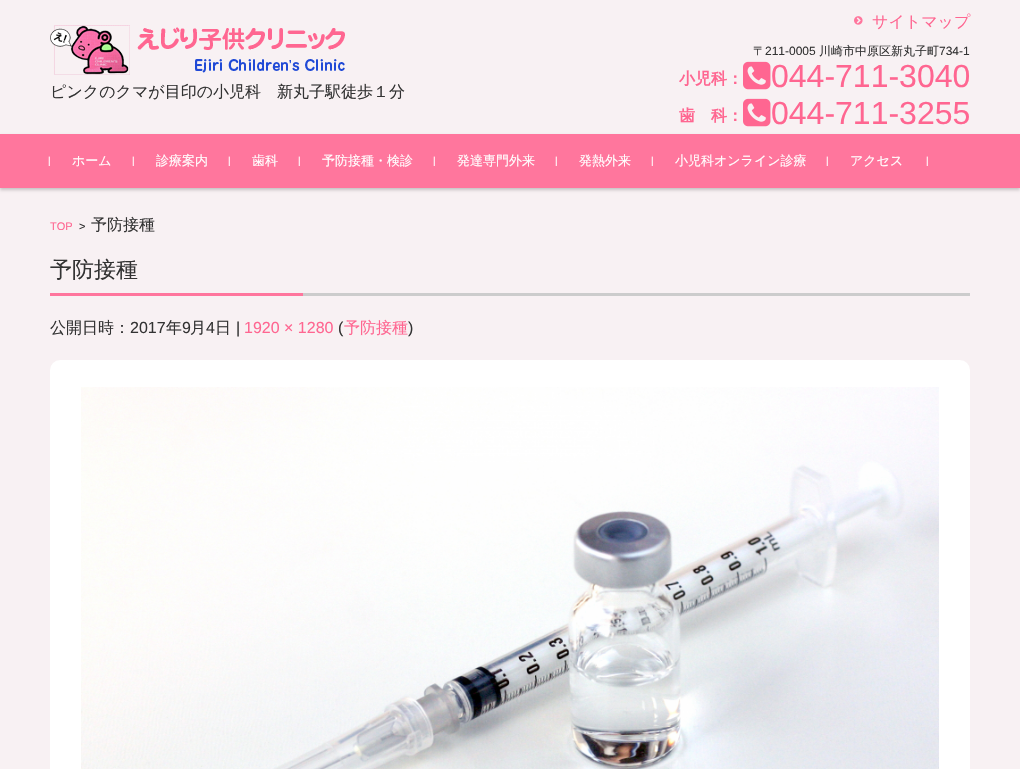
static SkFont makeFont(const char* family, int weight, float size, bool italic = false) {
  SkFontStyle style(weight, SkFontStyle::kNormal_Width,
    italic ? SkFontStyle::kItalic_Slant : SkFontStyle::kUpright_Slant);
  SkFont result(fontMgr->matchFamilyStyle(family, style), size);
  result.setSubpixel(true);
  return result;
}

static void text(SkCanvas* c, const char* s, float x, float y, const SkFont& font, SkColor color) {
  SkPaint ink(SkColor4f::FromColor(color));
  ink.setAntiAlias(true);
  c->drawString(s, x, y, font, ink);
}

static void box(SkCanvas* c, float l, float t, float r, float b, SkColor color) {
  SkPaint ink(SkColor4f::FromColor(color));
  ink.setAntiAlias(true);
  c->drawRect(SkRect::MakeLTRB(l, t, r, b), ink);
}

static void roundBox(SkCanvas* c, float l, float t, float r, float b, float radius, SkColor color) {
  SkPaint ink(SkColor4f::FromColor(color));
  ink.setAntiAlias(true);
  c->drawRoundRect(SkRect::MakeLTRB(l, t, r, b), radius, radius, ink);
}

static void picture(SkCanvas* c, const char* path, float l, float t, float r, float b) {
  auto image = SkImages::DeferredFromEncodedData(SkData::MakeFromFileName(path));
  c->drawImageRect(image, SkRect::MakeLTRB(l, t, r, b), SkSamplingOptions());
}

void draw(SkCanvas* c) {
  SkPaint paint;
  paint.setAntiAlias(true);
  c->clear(0xfff8f1f3);
  picture(c, "img_01.png", 50, 25, 345, 75);
  SkFont face1 = makeFont("WenQuanYi Zen Hei", 500, 16);
  text(c, "ピンクのクマが目印の小児科　新丸子駅徒歩１分", 50, 97, face1, 0xff333333);
  picture(c, "img_02.png", 854, 16, 863, 25);
  text(c, "サイトマップ", 872, 27, face1, 0xffff6691);
  SkFont face2 = makeFont("WenQuanYi Zen Hei", 500, 12);
  text(c, "〒", 753, 55, face2, 0xff333333);
  SkFont face3 = makeFont("Liberation Sans", 400, 12);
  text(c, "211-0005", 765, 55, face3, 0xff333333);
  text(c, "川崎市中原区新丸子町", 819, 55, face2, 0xff333333);
  text(c, "734-1", 939, 55, face3, 0xff333333);
  SkFont face4 = makeFont("WenQuanYi Zen Hei", 700, 16);
  text(c, "小児科：", 679, 84, face4, 0xffff6691);
  picture(c, "img_03.png", 743, 61, 771, 90);
  SkFont face5 = makeFont("Liberation Sans", 400, 32);
  text(c, "044-711-3040", 771, 87, face5, 0xffff6691);
  text(c, "歯　科：", 679, 121, face4, 0xffff6691);
  picture(c, "img_03.png", 743, 98, 771, 127);
  text(c, "044-711-3255", 771, 124, face5, 0xffff6691);
  paint.setColor(0x33000000);
  paint.setMaskFilter(SkMaskFilter::MakeBlur(kNormal_SkBlurStyle, 1.5f));
  c->drawRect(SkRect::MakeLTRB(0, 136, 1020, 190), paint);
  paint.setMaskFilter(nullptr);
  box(c, 0, 134, 1020, 188, 0xffff769d);
  SkFont face6 = makeFont("Liberation Sans", 400, 10);
  text(c, "|", 48, 164, face6, 0xffffffff);
  SkFont face7 = makeFont("WenQuanYi Zen Hei", 500, 13);
  text(c, "ホーム", 72, 165, face7, 0xffffffff);
  text(c, "|", 132, 164, face6, 0xffffffff);
  text(c, "診療案内", 156, 165, face7, 0xffffffff);
  text(c, "|", 228, 164, face6, 0xffffffff);
  text(c, "歯科", 252, 165, face7, 0xffffffff);
  text(c, "|", 298, 164, face6, 0xffffffff);
  text(c, "予防接種・検診", 322, 165, face7, 0xffffffff);
  text(c, "|", 433, 164, face6, 0xffffffff);
  text(c, "発達専門外来", 457, 165, face7, 0xffffffff);
  text(c, "|", 555, 164, face6, 0xffffffff);
  text(c, "発熱外来", 579, 165, face7, 0xffffffff);
  text(c, "|", 651, 164, face6, 0xffffffff);
  text(c, "小児科オンライン診療", 675, 165, face7, 0xffffffff);
  text(c, "|", 826, 164, face6, 0xffffffff);
  text(c, "アクセス", 850, 165, face7, 0xffffffff);
  text(c, "|", 926, 164, face6, 0xffffffff);
  SkFont face8 = makeFont("Liberation Sans", 400, 11);
  text(c, "TOP", 50, 230, face8, 0xffff6691);
  text(c, ">", 79, 230, face8, 0xff333333);
  text(c, "予防接種", 91, 230, face1, 0xff333333);
  box(c, 303, 293, 970, 296, 0xffcccccc);
  SkFont face9 = makeFont("WenQuanYi Zen Hei", 500, 22);
  text(c, "予防接種", 50, 277, face9, 0xff333333);
  box(c, 50, 293, 303, 296, 0xffff769d);
  text(c, "公開日時：", 50, 333, face1, 0xff333333);
  SkFont face10 = makeFont("Liberation Sans", 400, 16);
  text(c, "2017", 130, 333, face10, 0xff333333);
  text(c, "年", 166, 333, face1, 0xff333333);
  text(c, "9", 182, 333, face10, 0xff333333);
  text(c, "月", 190, 333, face1, 0xff333333);
  text(c, "4", 206, 333, face10, 0xff333333);
  text(c, "日", 215, 333, face1, 0xff333333);
  text(c, "|", 236, 333, face10, 0xff333333);
  text(c, "1920 × 1280", 244, 333, face10, 0xffff6691);
  text(c, "(", 338, 333, face10, 0xff333333);
  text(c, "予防接種", 344, 333, face1, 0xffff6691);
  text(c, ")", 408, 333, face10, 0xff333333);
  roundBox(c, 50, 360, 970, 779, 10, 0xffffffff);
  picture(c, "img_04.png", 81, 387, 939, 769);
}
